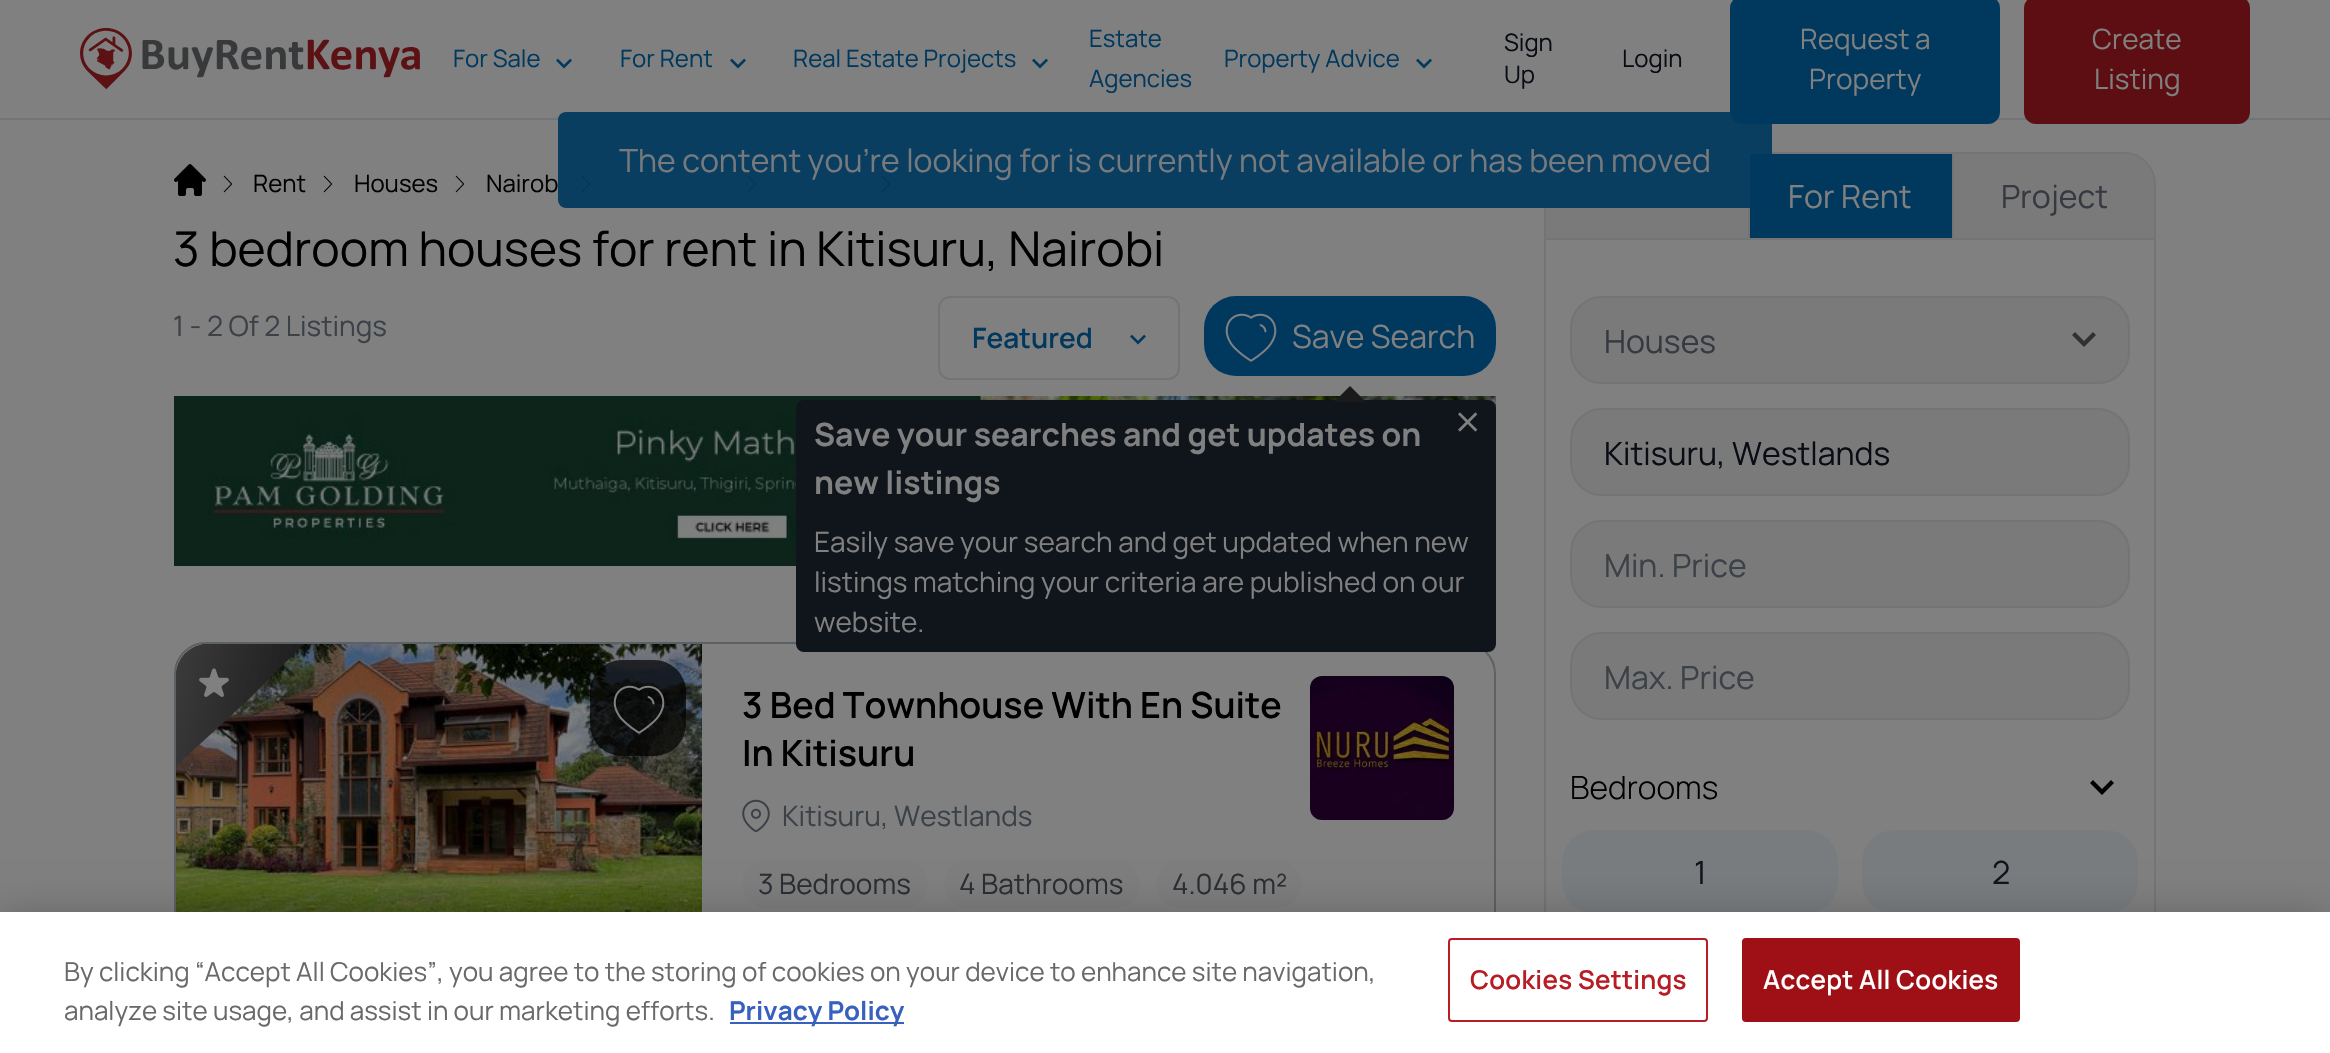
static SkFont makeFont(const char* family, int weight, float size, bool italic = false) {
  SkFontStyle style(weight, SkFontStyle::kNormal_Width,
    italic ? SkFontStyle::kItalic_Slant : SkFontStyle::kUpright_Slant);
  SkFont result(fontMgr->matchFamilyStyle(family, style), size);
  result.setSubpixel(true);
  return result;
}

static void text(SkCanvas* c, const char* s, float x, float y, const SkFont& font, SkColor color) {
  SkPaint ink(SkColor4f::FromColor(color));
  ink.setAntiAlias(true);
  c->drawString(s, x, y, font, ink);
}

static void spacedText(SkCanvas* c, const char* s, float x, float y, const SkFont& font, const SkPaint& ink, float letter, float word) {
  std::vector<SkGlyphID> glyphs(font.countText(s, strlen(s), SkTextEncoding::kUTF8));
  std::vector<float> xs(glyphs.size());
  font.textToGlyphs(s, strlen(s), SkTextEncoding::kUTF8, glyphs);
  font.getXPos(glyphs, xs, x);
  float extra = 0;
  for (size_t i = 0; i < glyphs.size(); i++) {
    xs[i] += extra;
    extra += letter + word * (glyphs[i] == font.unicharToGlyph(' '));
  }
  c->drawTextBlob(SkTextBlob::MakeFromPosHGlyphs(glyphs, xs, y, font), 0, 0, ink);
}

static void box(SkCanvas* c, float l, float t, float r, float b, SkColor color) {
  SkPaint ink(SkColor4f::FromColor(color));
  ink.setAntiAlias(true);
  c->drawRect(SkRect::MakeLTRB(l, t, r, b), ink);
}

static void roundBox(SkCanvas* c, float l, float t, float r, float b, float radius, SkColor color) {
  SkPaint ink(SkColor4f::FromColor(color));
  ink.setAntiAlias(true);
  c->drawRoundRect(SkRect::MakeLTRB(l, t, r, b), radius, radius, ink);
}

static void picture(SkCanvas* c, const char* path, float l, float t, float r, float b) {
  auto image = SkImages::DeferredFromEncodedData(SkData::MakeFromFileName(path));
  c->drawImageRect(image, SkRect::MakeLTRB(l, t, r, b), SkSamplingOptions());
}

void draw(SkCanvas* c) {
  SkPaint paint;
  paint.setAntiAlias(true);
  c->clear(0xff808080);
  box(c, 0, 118, 2330, 120, 0xff717478);
  picture(c, "img_01.png", 80, 28, 420, 90);
  SkFont face1 = makeFont("Manrope", 400, 24);
  text(c, "For Sale", 453, 67, face1, 0xff00385e);
  picture(c, "img_02.png", 556, 58, 572, 69);
  text(c, "For Rent", 620, 67, face1, 0xff00385e);
  picture(c, "img_02.png", 730, 58, 746, 69);
  text(c, "Real Estate Projects", 793, 67, face1, 0xff00385e);
  picture(c, "img_02.png", 1032, 58, 1048, 69);
  text(c, "Estate", 1089, 47, face1, 0xff00385e);
  text(c, "Agencies", 1089, 87, face1, 0xff00385e);
  text(c, "Property Advice", 1224, 67, face1, 0xff00385e);
  picture(c, "img_02.png", 1416, 58, 1432, 69);
  text(c, "Sign", 1504, 51, face1, 0xff090c14);
  text(c, "Up", 1504, 83, face1, 0xff090c14);
  text(c, "Login", 1622, 67, face1, 0xff090c14);
  roundBox(c, 1730, -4, 2000, 124, 12, 0xff00385e);
  SkFont face2 = makeFont("Manrope", 400, 28);
  text(c, "Request a", 1800, 49, face2, 0xff808080);
  text(c, "Property", 1809, 89, face2, 0xff808080);
  roundBox(c, 2024, -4, 2250, 124, 12, 0xff5c0e12);
  text(c, "Create", 2092, 49, face2, 0xff808080);
  text(c, "Listing", 2094, 89, face2, 0xff808080);
  picture(c, "img_04.png", 581, 175, 591, 193);
  picture(c, "img_04.png", 747, 175, 757, 193);
  picture(c, "img_04.png", 881, 175, 891, 193);
  paint.setStyle(SkPaint::kStroke_Style);
  paint.setStrokeWidth(2);
  paint.setColor(0xff737476);
  c->drawPath(SkPathBuilder().moveTo(1576, 153).lineTo(2124, 153).cubicTo(2141, 153, 2155, 167, 2155, 184).lineTo(2155, 239).lineTo(1545, 239).lineTo(1545, 184).cubicTo(1545, 167, 1559, 153, 1576, 153).close().detach(), paint);
  paint.setStyle(SkPaint::kFill_Style);
  paint.setColor(0xff7a7a7b);
  c->drawPath(SkPathBuilder().moveTo(1576, 154).lineTo(1748, 154).lineTo(1748, 238).lineTo(1546, 238).lineTo(1546, 184).cubicTo(1546, 167.5f, 1559.5f, 154, 1576, 154).close().detach(), paint);
  box(c, 1748, 154, 1750, 238, 0xff737476);
  box(c, 1750, 154, 1952, 238, 0xff00385e);
  roundBox(c, 558, 112, 1772, 208, 8, 0xeb00385e);
  SkFont face3 = makeFont("Manrope", 400, 32);
  text(c, "The content you’re looking for is currently not available or has been moved", 619, 172, face3, 0xff767a7d);
  picture(c, "img_03.png", 174, 164, 206, 196);
  picture(c, "img_04.png", 223, 175, 233, 193);
  text(c, "Rent", 253, 192, face1, 0xff000000);
  picture(c, "img_04.png", 323, 175, 333, 193);
  text(c, "Houses", 354, 192, face1, 0xff000000);
  picture(c, "img_04.png", 455, 175, 465, 193);
  text(c, "Nairob", 486, 192, face1, 0xff000000);
  SkFont face4 = makeFont("Manrope", 400, 48);
  text(c, "3 bedroom houses for rent in Kitisuru, Nairobi", 173, 266, face4, 0xff000000);
  text(c, "1 - 2 Of 2 Listings", 173, 336, face2, 0xff3b4147);
  roundBox(c, 1204, 296, 1496, 376, 32, 0xff00385e);
  picture(c, "img_05.png", 1225, 313, 1277, 362);
  text(c, "Save Search", 1292, 348, face3, 0xff808080);
  picture(c, "img_07.png", 174, 396, 1496, 566);
  paint.setStyle(SkPaint::kStroke_Style);
  paint.setColor(0xff5c6166);
  c->drawRoundRect(SkRect::MakeLTRB(175, 643, 1495, 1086), 31, 31, paint);
  roundBox(c, 176, 644, 1494, 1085, 32, 0xff808080);
  roundBox(c, 796, 400, 1496, 652, 8, 0xff10151c);
  paint.setStyle(SkPaint::kFill_Style);
  paint.setColor(0xff1a1a1a);
  c->drawPath(SkPathBuilder().moveTo(1366, 402).lineTo(1334, 402).lineTo(1350, 386).close().detach(), paint);
  SkFont face5 = makeFont("Manrope", 700, 32);
  text(c, "Save your searches and get updates on", 814, 446, face5, 0xff808080);
  text(c, "new listings", 814, 494, face5, 0xff808080);
  picture(c, "img_06.png", 1458, 412, 1478, 432);
  text(c, "Easily save your search and get updated when new", 814, 552, face2, 0xff808080);
  text(c, "listings matching your criteria are published on our", 814, 592, face2, 0xff808080);
  text(c, "website.", 814, 632, face2, 0xff808080);
  paint.setStyle(SkPaint::kStroke_Style);
  paint.setColor(0xff737476);
  c->drawRoundRect(SkRect::MakeLTRB(939, 297, 1179, 379), 11, 11, paint);
  SkFont face6 = makeFont("Manrope", 600, 28);
  text(c, "Featured", 972, 348, face6, 0xff00385e);
  picture(c, "img_02.png", 1130, 334, 1146, 345);
  picture(c, "img_08.png", 176, 644, 702, 912);
  picture(c, "img_09.png", 176, 644, 304, 766);
  roundBox(c, 590, 660, 686, 756, 32, 0xb3000000);
  picture(c, "img_10.png", 613, 685, 665, 734);
  SkFont face7 = makeFont("Manrope", 600, 36);
  text(c, "3 Bed Townhouse With En Suite", 742, 718, face7, 0xff000000);
  text(c, "In Kitisuru", 742, 766, face7, 0xff000000);
  picture(c, "img_11.png", 742, 799, 770, 832);
  text(c, "Kitisuru, Westlands", 782, 826, face2, 0xff3b4147);
  picture(c, "img_12.png", 1310, 676, 1454, 820);
  roundBox(c, 742, 860, 928, 908, 24, 0xff7d7d7e);
  text(c, "3 Bedrooms", 758, 894, face2, 0xff2b2f34);
  roundBox(c, 944, 860, 1140, 908, 24, 0xff7d7d7e);
  text(c, "4 Bathrooms", 959, 894, face2, 0xff2b2f34);
  roundBox(c, 1156, 860, 1302, 908, 24, 0xff7d7d7e);
  text(c, "4.046 m²", 1172, 894, face2, 0xff2b2f34);
  text(c, "For Rent", 1788, 208, face3, 0xff808080);
  box(c, 1952, 154, 1954, 238, 0xff737476);
  paint.setStyle(SkPaint::kFill_Style);
  paint.setColor(0xff7a7a7b);
  c->drawPath(SkPathBuilder().moveTo(1954, 154).lineTo(2124, 154).cubicTo(2140.5f, 154, 2154, 167.5f, 2154, 184).lineTo(2154, 238).lineTo(1954, 238).close().detach(), paint);
  text(c, "Project", 2001, 208, face3, 0xff363940);
  paint.setColor(0xff737476);
  c->drawPath(SkPathBuilder(SkPathFillType::kEvenOdd).moveTo(1544, 240).lineTo(2156, 240).lineTo(2156, 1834).cubicTo(2156, 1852, 2142, 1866, 2124, 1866).lineTo(1576, 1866).cubicTo(1558, 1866, 1544, 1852, 1544, 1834).close().moveTo(1546, 240).lineTo(2154, 240).lineTo(2154, 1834).cubicTo(2154, 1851, 2141, 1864, 2124, 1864).lineTo(1576, 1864).cubicTo(1559, 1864, 1546, 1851, 1546, 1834).close().detach(), paint);
  roundBox(c, 1570, 296, 2130, 384, 32, 0xff7a7a7b);
  paint.setColor(0xff303030);
  c->drawPath(SkPathBuilder(SkPathFillType::kEvenOdd).moveTo(2093, 332).lineTo(2084, 341).lineTo(2075, 332).lineTo(2072, 335).lineTo(2084, 347).lineTo(2096, 335).close().detach(), paint);
  paint.setStyle(SkPaint::kStroke_Style);
  paint.setColor(0xff737476);
  c->drawRoundRect(SkRect::MakeLTRB(1571, 297, 2129, 383), 31, 31, paint);
  text(c, "Houses", 1604, 353, face3, 0xff363940);
  paint.setStyle(SkPaint::kFill_Style);
  paint.setColor(0xff7a7a7b);
  c->drawRoundRect(SkRect::MakeLTRB(1571, 409, 2129, 495), 31, 31, paint);
  paint.setStyle(SkPaint::kStroke_Style);
  paint.setColor(0xff737476);
  c->drawRoundRect(SkRect::MakeLTRB(1571, 409, 2129, 495), 31, 31, paint);
  text(c, "Kitisuru, Westlands", 1604, 465, face3, 0xff090c14);
  paint.setStyle(SkPaint::kFill_Style);
  paint.setColor(0xff7a7a7b);
  c->drawRoundRect(SkRect::MakeLTRB(1571, 521, 2129, 607), 31, 31, paint);
  paint.setStyle(SkPaint::kStroke_Style);
  paint.setColor(0xff737476);
  c->drawRoundRect(SkRect::MakeLTRB(1571, 521, 2129, 607), 31, 31, paint);
  text(c, "Min. Price", 1604, 577, face3, 0xff3b4147);
  paint.setStyle(SkPaint::kFill_Style);
  paint.setColor(0xff7a7a7b);
  c->drawRoundRect(SkRect::MakeLTRB(1571, 633, 2129, 719), 31, 31, paint);
  paint.setStyle(SkPaint::kStroke_Style);
  paint.setColor(0xff737476);
  c->drawRoundRect(SkRect::MakeLTRB(1571, 633, 2129, 719), 31, 31, paint);
  text(c, "Max. Price", 1604, 689, face3, 0xff3b4147);
  SkFont face8 = makeFont("Manrope", 300, 32);
  text(c, "Bedrooms", 1570, 799, face8, 0xff000000);
  paint.setStyle(SkPaint::kFill_Style);
  paint.setColor(0xff000000);
  c->drawPath(SkPathBuilder().moveTo(2111, 780).lineTo(2102, 789).lineTo(2093, 780).lineTo(2090, 783).lineTo(2102, 795).lineTo(2114, 783).close().detach(), paint);
  roundBox(c, 1562, 830, 1838, 914, 32, 0xff797c7e);
  text(c, "1", 1694, 884, face3, 0xff10151c);
  roundBox(c, 1862, 830, 2138, 914, 32, 0xff797c7e);
  text(c, "2", 1992, 884, face3, 0xff10151c);
  paint.setColor(0x33000000);
  paint.setMaskFilter(SkMaskFilter::MakeBlur(kNormal_SkBlurStyle, 18));
  c->drawRect(SkRect::MakeLTRB(0, 912, 2330, 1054), paint);
  paint.setMaskFilter(nullptr);
  box(c, 0, 912, 2330, 1053, 0xffffffff);
  SkFont face9 = makeFont("Manrope", 400, 26.02f);
  text(c, "By clicking “Accept All Cookies”, you agree to the storing of cookies on your device to enhance site navigation,", 64, 981, face9, 0xff696969);
  text(c, "analyze site usage, and assist in our marketing efforts.", 64, 1020, face9, 0xff696969);
  box(c, 730, 1022, 904, 1024, 0xff3860be);
  SkFont face10 = makeFont("Manrope", 700, 26.02f);
  text(c, "Privacy Policy", 729, 1020, face10, 0xff3860be);
  paint.setStyle(SkPaint::kStroke_Style);
  paint.setColor(0xffb81c24);
  c->drawRoundRect(SkRect::MakeLTRB(1449, 939, 1707, 1021), 3, 3, paint);
  SkFont face11 = makeFont("Manrope", 600, 26.02f);
  paint.setStyle(SkPaint::kFill_Style);
  spacedText(c, "Cookies Settings", 1470, 989, face11, paint, 0.25f, 0);
  paint.setColor(0xff9e0f16);
  c->drawRoundRect(SkRect::MakeLTRB(1743, 939, 2019, 1021), 3, 3, paint);
  paint.setStyle(SkPaint::kStroke_Style);
  c->drawRoundRect(SkRect::MakeLTRB(1743, 939, 2019, 1021), 3, 3, paint);
  paint.setStyle(SkPaint::kFill_Style);
  paint.setColor(0xffffffff);
  spacedText(c, "Accept All Cookies", 1763, 989, face11, paint, 0.25f, 0);
}
